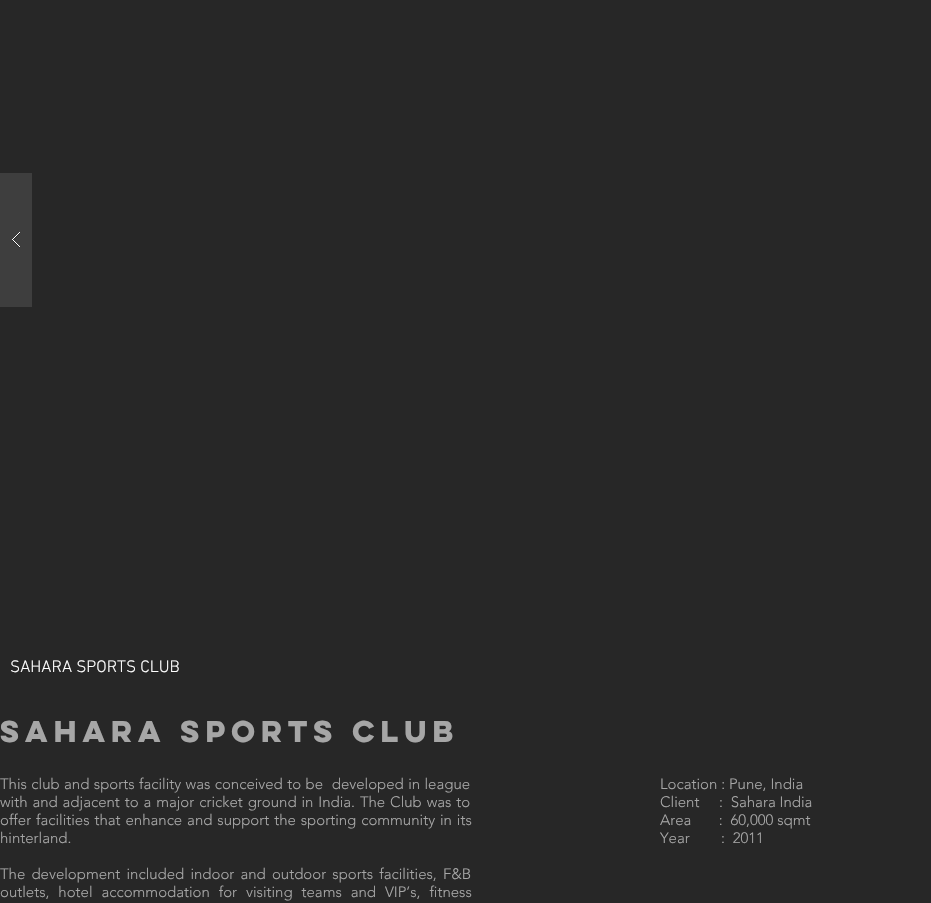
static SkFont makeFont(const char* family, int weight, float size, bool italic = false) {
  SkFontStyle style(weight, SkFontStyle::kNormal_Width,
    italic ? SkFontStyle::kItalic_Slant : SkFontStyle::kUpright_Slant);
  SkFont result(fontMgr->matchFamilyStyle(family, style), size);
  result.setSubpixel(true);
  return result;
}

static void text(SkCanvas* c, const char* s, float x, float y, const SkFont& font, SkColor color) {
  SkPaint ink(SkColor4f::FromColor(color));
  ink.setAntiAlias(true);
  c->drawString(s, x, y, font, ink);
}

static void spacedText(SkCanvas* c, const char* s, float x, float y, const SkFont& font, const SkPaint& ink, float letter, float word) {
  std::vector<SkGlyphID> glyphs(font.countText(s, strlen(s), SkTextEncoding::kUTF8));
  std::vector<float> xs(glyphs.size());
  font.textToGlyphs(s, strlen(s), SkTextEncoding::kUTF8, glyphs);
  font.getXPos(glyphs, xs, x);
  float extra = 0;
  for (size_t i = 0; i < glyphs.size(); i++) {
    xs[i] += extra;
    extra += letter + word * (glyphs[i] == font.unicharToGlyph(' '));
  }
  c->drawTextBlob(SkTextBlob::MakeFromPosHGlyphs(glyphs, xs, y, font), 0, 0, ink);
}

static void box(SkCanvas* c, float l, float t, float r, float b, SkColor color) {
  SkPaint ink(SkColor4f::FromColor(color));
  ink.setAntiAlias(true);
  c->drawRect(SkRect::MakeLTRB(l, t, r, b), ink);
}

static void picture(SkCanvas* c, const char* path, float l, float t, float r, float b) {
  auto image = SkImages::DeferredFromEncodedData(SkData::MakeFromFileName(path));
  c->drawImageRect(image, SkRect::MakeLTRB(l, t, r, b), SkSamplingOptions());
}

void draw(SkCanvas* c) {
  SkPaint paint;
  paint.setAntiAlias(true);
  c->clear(0xff272727);
  box(c, 0, 173, 32, 307, 0xff3e3e3e);
  picture(c, "img_01.png", 12, 232, 20, 248);
  SkFont face1 = makeFont("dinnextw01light", 300, 17);
  text(c, "SAHARA SPORTS CLUB", 10, 672, face1, 0xffffffff);
  SkFont face2 = makeFont("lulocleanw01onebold", 700, 27);
  text(c, "SAHARA SPORTS CLUB", 0, 742, face2, 0xffa6a6a6);
  SkFont face3 = makeFont("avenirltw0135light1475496", 300, 15);
  paint.setColor(0xffa6a6a6);
  spacedText(c, "This club and sports facility was conceived to be  developed in league", 0, 789, face3, paint, 0, 0.5f);
  spacedText(c, "with and adjacent to a major cricket ground in India. The Club was to", 0, 807, face3, paint, 0, 1);
  spacedText(c, "offer facilities that enhance and support the sporting community in its", 0, 825, face3, paint, 0, 1);
  text(c, "hinterland.", 0, 843, face3, 0xffa6a6a6);
  spacedText(c, "The development included indoor and outdoor sports facilities, F&B", 0, 879, face3, paint, 0, 2.25f);
  spacedText(c, "outlets, hotel accommodation for visiting teams and VIP’s, fitness", 0, 897, face3, paint, 0, 5);
  text(c, "Location : Pune, India", 660, 789, face3, 0xffa6a6a6);
  text(c, "Client     :  Sahara India", 660, 807, face3, 0xffa6a6a6);
  text(c, "Area       :  60,000 sqmt", 660, 825, face3, 0xffa6a6a6);
  text(c, "Year        :  2011", 660, 843, face3, 0xffa6a6a6);
}
